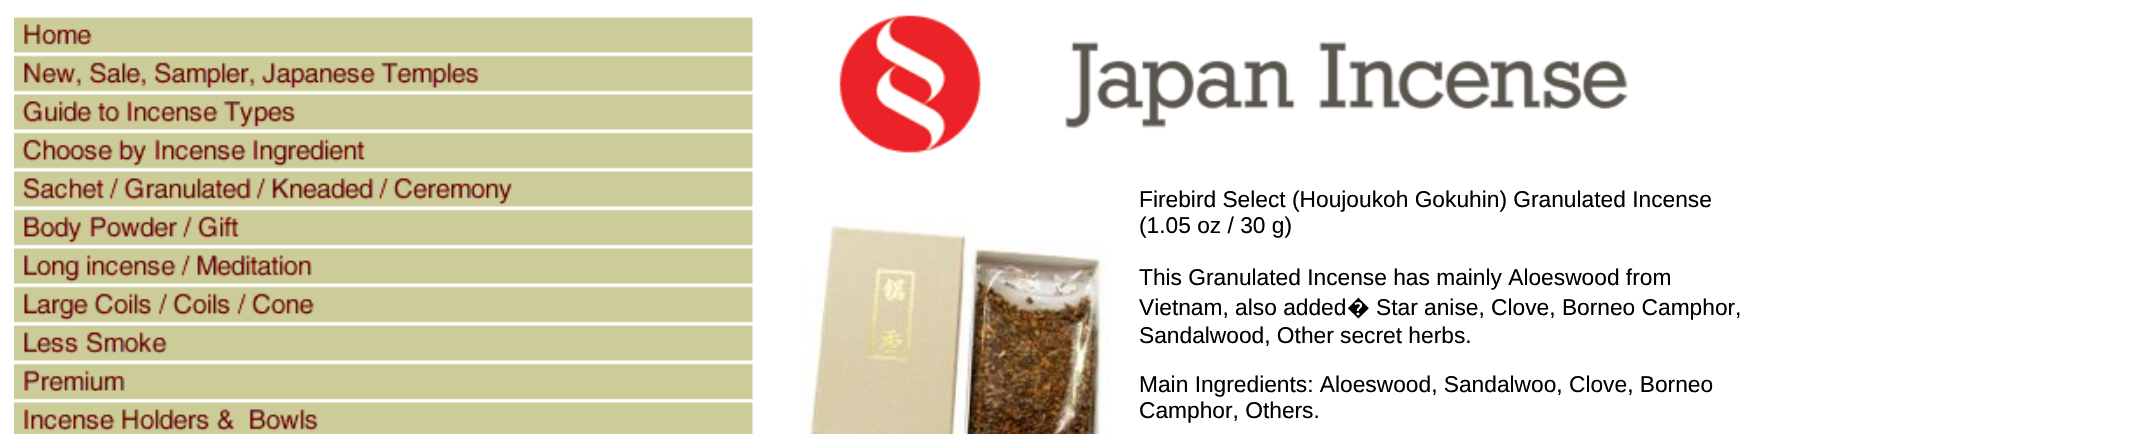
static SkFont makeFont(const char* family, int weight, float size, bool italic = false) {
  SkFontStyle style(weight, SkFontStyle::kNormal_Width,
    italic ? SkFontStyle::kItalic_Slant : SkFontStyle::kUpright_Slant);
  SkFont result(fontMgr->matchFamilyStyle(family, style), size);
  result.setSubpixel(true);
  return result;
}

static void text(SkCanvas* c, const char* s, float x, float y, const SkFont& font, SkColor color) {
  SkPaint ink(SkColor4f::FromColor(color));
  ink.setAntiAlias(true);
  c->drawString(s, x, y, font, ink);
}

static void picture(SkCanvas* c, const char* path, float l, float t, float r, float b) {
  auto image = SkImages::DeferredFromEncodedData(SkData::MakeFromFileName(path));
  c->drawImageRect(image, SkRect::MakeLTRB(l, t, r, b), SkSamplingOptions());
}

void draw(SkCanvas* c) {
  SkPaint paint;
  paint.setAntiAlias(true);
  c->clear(0xffffffff);
  picture(c, "img_01.png", 14, 17, 753, 434);
  picture(c, "img_02.png", 839, 15, 1628, 153);
  picture(c, "img_03.png", 801, 220, 1109, 434);
  SkFont face1 = makeFont("Liberation Sans", 400, 22.75f);
  text(c, "Firebird Select (Houjoukoh Gokuhin) Granulated Incense", 1139, 207, face1, 0xff000000);
  text(c, "(1.05 oz / 30 g)", 1139, 233, face1, 0xff000000);
  text(c, "This Granulated Incense has mainly Aloeswood from", 1139, 285, face1, 0xff000000);
  text(c, "Vietnam, also added", 1139, 315, face1, 0xff000000);
  SkFont face2 = makeFont("Noto Sans", 400, 22.75f);
  text(c, "�", 1347, 315, face2, 0xff000000);
  text(c, "Star anise, Clove, Borneo Camphor,", 1376, 315, face1, 0xff000000);
  text(c, "Sandalwood, Other secret herbs.", 1139, 343, face1, 0xff000000);
  text(c, "Main Ingredients: Aloeswood, Sandalwoo, Clove, Borneo", 1139, 392, face1, 0xff000000);
  text(c, "Camphor, Others.", 1139, 418, face1, 0xff000000);
}
